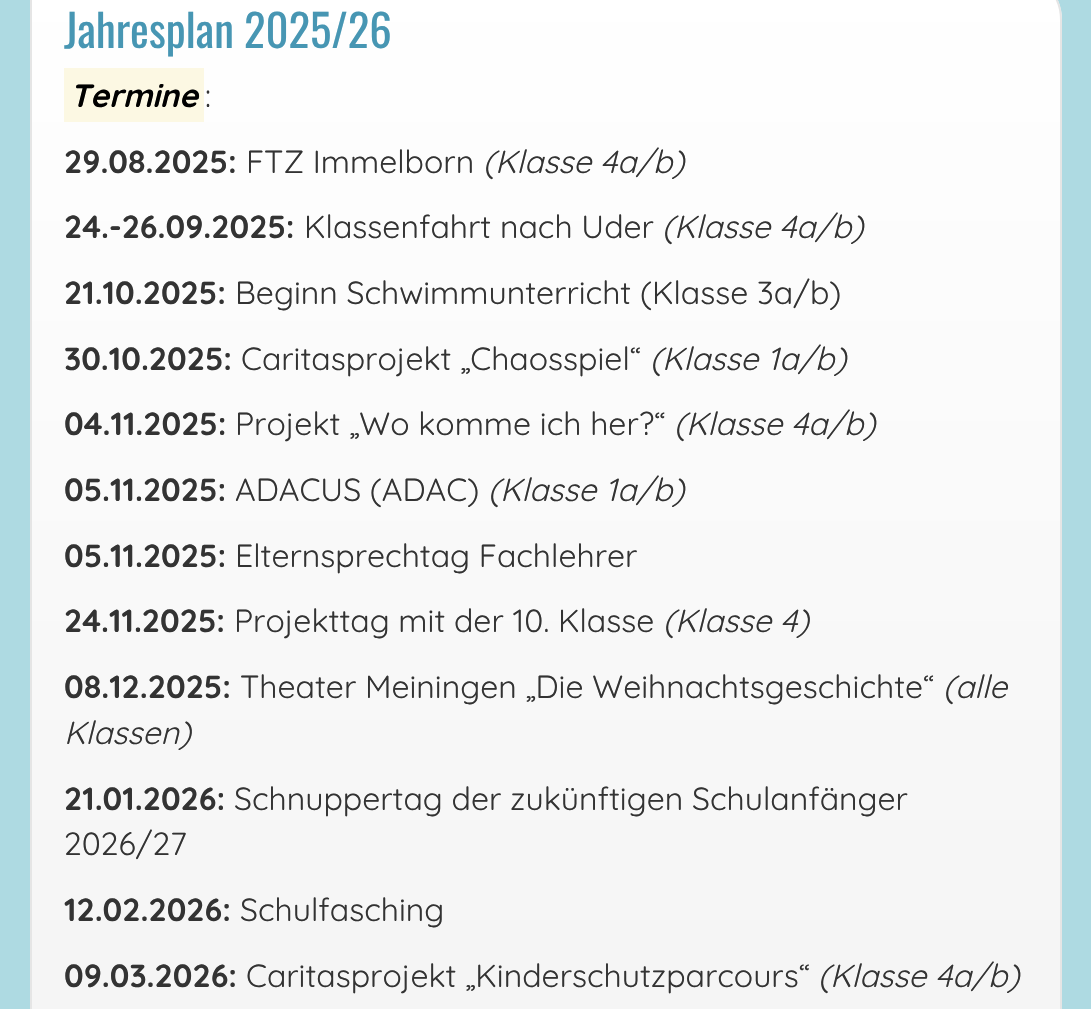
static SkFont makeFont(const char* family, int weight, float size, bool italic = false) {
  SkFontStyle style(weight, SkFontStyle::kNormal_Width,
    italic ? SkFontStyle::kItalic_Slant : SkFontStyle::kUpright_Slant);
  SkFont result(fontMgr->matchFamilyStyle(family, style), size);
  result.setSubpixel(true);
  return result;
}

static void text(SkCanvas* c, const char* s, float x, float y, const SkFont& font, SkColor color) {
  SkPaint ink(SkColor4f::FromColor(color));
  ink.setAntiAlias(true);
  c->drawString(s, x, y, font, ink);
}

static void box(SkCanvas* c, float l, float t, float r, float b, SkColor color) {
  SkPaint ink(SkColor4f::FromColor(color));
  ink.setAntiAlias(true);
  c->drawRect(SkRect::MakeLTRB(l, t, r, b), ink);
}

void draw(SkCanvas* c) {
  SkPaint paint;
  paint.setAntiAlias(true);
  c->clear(0xffaedae2);
  c->save();
  c->clipPath(SkPathBuilder().moveTo(30, -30).lineTo(1012, -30).cubicTo(1039.5f, -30, 1062, -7.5f, 1062, 20).lineTo(1062, 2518).cubicTo(1062, 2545.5f, 1039.5f, 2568, 1012, 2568).lineTo(80, 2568).cubicTo(52.5f, 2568, 30, 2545.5f, 30, 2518).close().detach(), true);
  {
    const SkColor colors[] = {0xffffffff, 0xffe5e5e5};
    const float stops[] = {0, 1};
    const SkPoint ends[] = {{546, -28}, {546, 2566}};
    paint.setShader(SkGradientShader::MakeLinear(ends, colors, stops, 2, SkTileMode::kClamp));
    paint.setAlpha(255);
  }
  c->drawRect(SkRect::MakeLTRB(32, 0, 1062, 1009), paint);
  c->restore();
  paint.setStyle(SkPaint::kStroke_Style);
  paint.setStrokeWidth(2);
  paint.setShader(nullptr);
  paint.setColor(0xffe5e5e5);
  c->drawPath(SkPathBuilder().moveTo(31, -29).lineTo(1012, -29).cubicTo(1039, -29, 1061, -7, 1061, 20).lineTo(1061, 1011).cubicTo(1061, 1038, 1039, 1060, 1012, 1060).lineTo(80, 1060).cubicTo(53, 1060, 31, 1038, 31, 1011).close().detach(), paint);
  SkFont face1 = makeFont("Oswald", 400, 44.75f);
  text(c, "Jahresplan 2025/26", 64, 48, face1, 0xff4796b3);
  box(c, 64, 68, 204, 122, 0xfffcf8e3);
  SkFont face2 = makeFont("Quicksand", 700, 32, true);
  text(c, "Termine", 70, 107, face2, 0xff000000);
  SkFont face3 = makeFont("Quicksand", 400, 32);
  text(c, ":", 205, 107, face3, 0xff333333);
  SkFont face4 = makeFont("Quicksand", 700, 32);
  text(c, "29.08.2025:", 64, 173, face4, 0xff333333);
  text(c, "FTZ Immelborn", 246, 173, face3, 0xff333333);
  SkFont face5 = makeFont("Quicksand", 400, 32, true);
  text(c, "(Klasse 4a/b)", 483, 173, face5, 0xff333333);
  text(c, "24.-26.09.2025:", 64, 238, face4, 0xff333333);
  text(c, "Klassenfahrt nach Uder", 304, 238, face3, 0xff333333);
  text(c, "(Klasse 4a/b)", 662, 238, face5, 0xff333333);
  text(c, "21.10.2025:", 64, 304, face4, 0xff333333);
  text(c, "Beginn Schwimmunterricht (Klasse 3a/b)", 235, 304, face3, 0xff333333);
  text(c, "30.10.2025:", 64, 370, face4, 0xff333333);
  text(c, "Caritasprojekt „Chaosspiel“", 241, 370, face3, 0xff333333);
  text(c, "(Klasse 1a/b)", 650, 370, face5, 0xff333333);
  text(c, "04.11.2025:", 64, 435, face4, 0xff333333);
  text(c, "Projekt „Wo komme ich her?“", 235, 435, face3, 0xff333333);
  text(c, "(Klasse 4a/b)", 674, 435, face5, 0xff333333);
  text(c, "05.11.2025:", 64, 501, face4, 0xff333333);
  text(c, "ADACUS (ADAC)", 235, 501, face3, 0xff333333);
  text(c, "(Klasse 1a/b)", 488, 501, face5, 0xff333333);
  text(c, "05.11.2025:", 64, 567, face4, 0xff333333);
  text(c, "Elternsprechtag Fachlehrer", 235, 567, face3, 0xff333333);
  text(c, "24.11.2025:", 64, 632, face4, 0xff333333);
  text(c, "Projekttag mit der 10. Klasse", 234, 632, face3, 0xff333333);
  text(c, "(Klasse 4)", 663, 632, face5, 0xff333333);
  text(c, "08.12.2025:", 64, 698, face4, 0xff333333);
  text(c, "Theater Meiningen „Die Weihnachtsgeschichte“", 240, 698, face3, 0xff333333);
  text(c, "(alle", 943, 698, face5, 0xff333333);
  text(c, "Klassen)", 64, 744, face5, 0xff333333);
  text(c, "21.01.2026:", 64, 810, face4, 0xff333333);
  text(c, "Schnuppertag der zukünftigen Schulanfänger", 234, 810, face3, 0xff333333);
  text(c, "2026/27", 64, 855, face3, 0xff333333);
  text(c, "12.02.2026:", 64, 921, face4, 0xff333333);
  text(c, "Schulfasching", 240, 921, face3, 0xff333333);
  text(c, "09.03.2026:", 64, 987, face4, 0xff333333);
  text(c, "Caritasprojekt „Kinderschutzparcours“", 246, 987, face3, 0xff333333);
  text(c, "(Klasse 4a/b)", 818, 987, face5, 0xff333333);
}
